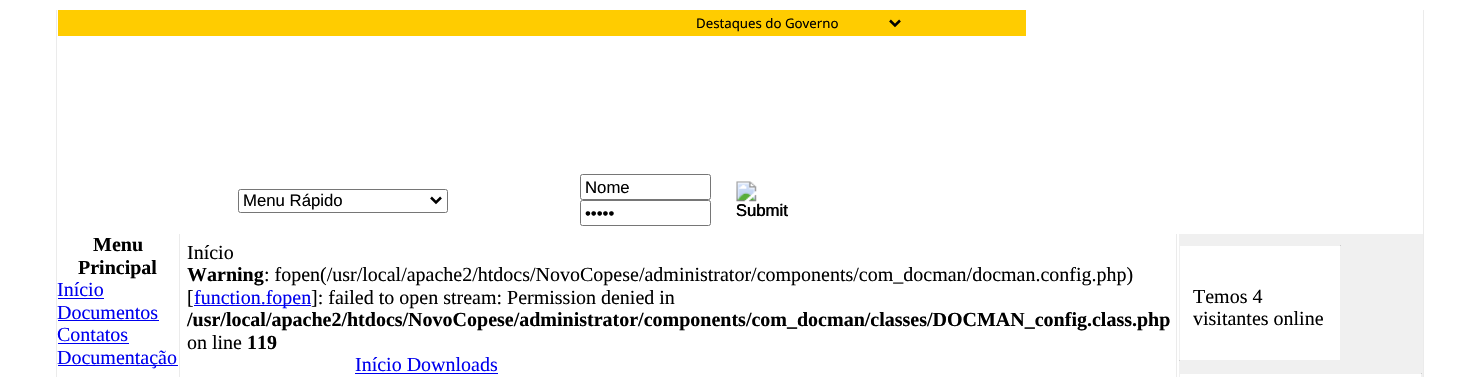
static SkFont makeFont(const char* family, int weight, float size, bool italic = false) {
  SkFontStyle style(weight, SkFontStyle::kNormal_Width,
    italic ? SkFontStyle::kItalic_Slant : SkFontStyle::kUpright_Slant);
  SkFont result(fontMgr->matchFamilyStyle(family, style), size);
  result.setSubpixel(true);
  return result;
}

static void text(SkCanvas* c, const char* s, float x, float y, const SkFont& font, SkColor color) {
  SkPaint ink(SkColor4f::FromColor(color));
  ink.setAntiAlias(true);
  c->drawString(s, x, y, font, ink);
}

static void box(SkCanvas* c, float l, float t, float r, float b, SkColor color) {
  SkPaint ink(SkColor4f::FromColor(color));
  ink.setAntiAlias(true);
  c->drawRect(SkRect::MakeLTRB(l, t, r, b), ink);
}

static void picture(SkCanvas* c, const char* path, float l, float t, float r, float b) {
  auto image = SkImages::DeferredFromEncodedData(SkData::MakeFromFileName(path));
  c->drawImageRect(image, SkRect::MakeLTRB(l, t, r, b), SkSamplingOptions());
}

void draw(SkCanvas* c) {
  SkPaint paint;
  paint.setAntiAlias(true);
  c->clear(0xffffffff);
  box(c, 56, 10, 57, 377, 0xffebebeb);
  box(c, 58, 10, 1026, 36, 0xffffcc00);
  paint.setStyle(SkPaint::kStroke_Style);
  paint.setStrokeWidth(2.5f);
  paint.setColor(0xff000000);
  c->drawPath(SkPathBuilder().moveTo(890, 20.5f).lineTo(895, 25.5f).lineTo(900, 20.5f).detach(), paint);
  SkFont face1 = makeFont("Noto Sans", 400, 13.25f);
  text(c, "Destaques do Governo", 696, 28, face1, 0xff000000);
  paint.setStrokeWidth(1);
  paint.setColor(0xff767676);
  c->drawRoundRect(SkRect::MakeLTRB(238.5f, 189.5f, 447.5f, 212.5f), 2, 2, paint);
  paint.setStrokeWidth(2.5f);
  paint.setColor(0xff000000);
  c->drawPath(SkPathBuilder().moveTo(431, 197.5f).lineTo(436, 202.5f).lineTo(441, 197.5f).detach(), paint);
  SkFont face2 = makeFont("Liberation Sans", 400, 16.75f);
  text(c, "Menu Rápido", 243, 206, face2, 0xff000000);
  paint.setStrokeWidth(1);
  paint.setColor(0xff767676);
  c->drawRoundRect(SkRect::MakeLTRB(580.5f, 174.5f, 710.5f, 199.5f), 2, 2, paint);
  text(c, "Nome", 585, 193, face2, 0xff000000);
  c->drawRoundRect(SkRect::MakeLTRB(580.5f, 200.5f, 710.5f, 225.5f), 2, 2, paint);
  text(c, "•••••", 585, 219, face2, 0xff000000);
  picture(c, "img_01.png", 736, 181, 788, 216);
  text(c, "Submit", 736, 216, face2, 0xff000000);
  SkFont face3 = makeFont("Liberation Serif", 700, 20);
  text(c, "Menu", 93, 251, face3, 0xff000000);
  text(c, "Principal", 78, 274, face3, 0xff000000);
  SkFont face4 = makeFont("Liberation Serif", 400, 20);
  text(c, "Início", 57, 296, face4, 0xff0000ee);
  box(c, 58, 298, 104, 299, 0xff0000ee);
  text(c, "Documentos", 57, 319, face4, 0xff0000ee);
  box(c, 58, 320, 159, 321, 0xff0000ee);
  text(c, "Contatos", 57, 341, face4, 0xff0000ee);
  box(c, 58, 343, 129, 344, 0xff0000ee);
  box(c, 58, 365, 178, 366, 0xff0000ee);
  text(c, "Documentação", 57, 364, face4, 0xff0000ee);
  box(c, 179, 234, 180, 377, 0xffebebeb);
  text(c, "Início", 187, 259, face4, 0xff000000);
  text(c, "Warning", 187, 281, face3, 0xff000000);
  text(c, ": fopen(/usr/local/apache2/htdocs/NovoCopese/administrator/components/com_docman/docman.config.php)", 264, 281, face4, 0xff000000);
  text(c, "[", 187, 304, face4, 0xff000000);
  box(c, 194, 305, 311, 306, 0xff0000ee);
  text(c, "function.fopen", 194, 304, face4, 0xff0000ee);
  text(c, "]: failed to open stream: Permission denied in", 311, 304, face4, 0xff000000);
  text(c, "/usr/local/apache2/htdocs/NovoCopese/administrator/components/com_docman/classes/DOCMAN_config.class.php", 187, 326, face3, 0xff000000);
  text(c, "on line", 187, 349, face4, 0xff000000);
  text(c, "119", 247, 349, face3, 0xff000000);
  text(c, "Início Downloads", 355, 371, face4, 0xff0000ee);
  box(c, 355, 373, 498, 374, 0xff0000ee);
  box(c, 1176, 234, 1177, 377, 0xffebebeb);
  box(c, 1179, 234, 1423, 377, 0xfff0f0f0);
  box(c, 1340, 245, 1341, 246, 0xffcdcdcd);
  box(c, 1180, 246, 1340, 360, 0xffffffff);
  text(c, "Temos 4", 1193, 303, face4, 0xff000000);
  text(c, "visitantes online", 1193, 325, face4, 0xff000000);
  box(c, 1179, 360, 1180, 361, 0xffcecece);
  box(c, 1421, 373, 1422, 374, 0xffcdcdcd);
  box(c, 1180, 374, 1421, 377, 0xffffffff);
  box(c, 1423, 10, 1424, 377, 0xffebebeb);
}
